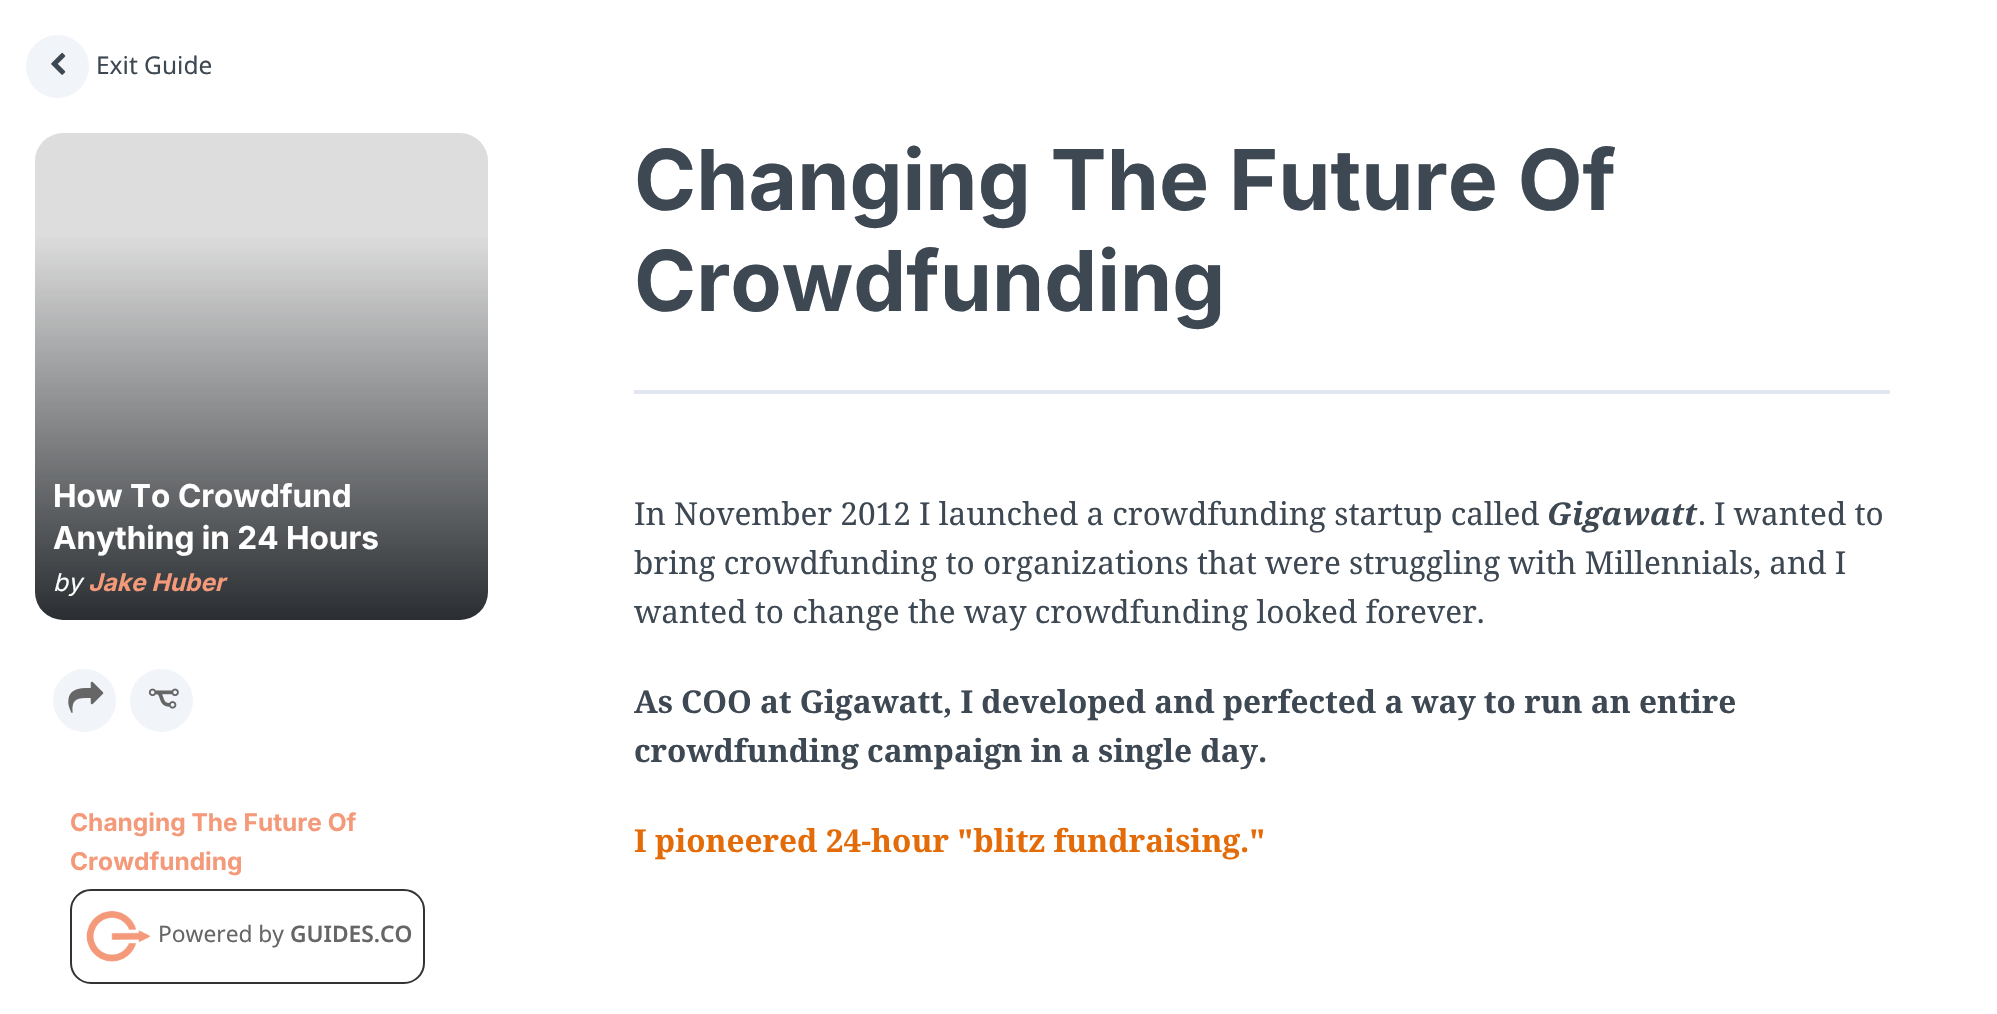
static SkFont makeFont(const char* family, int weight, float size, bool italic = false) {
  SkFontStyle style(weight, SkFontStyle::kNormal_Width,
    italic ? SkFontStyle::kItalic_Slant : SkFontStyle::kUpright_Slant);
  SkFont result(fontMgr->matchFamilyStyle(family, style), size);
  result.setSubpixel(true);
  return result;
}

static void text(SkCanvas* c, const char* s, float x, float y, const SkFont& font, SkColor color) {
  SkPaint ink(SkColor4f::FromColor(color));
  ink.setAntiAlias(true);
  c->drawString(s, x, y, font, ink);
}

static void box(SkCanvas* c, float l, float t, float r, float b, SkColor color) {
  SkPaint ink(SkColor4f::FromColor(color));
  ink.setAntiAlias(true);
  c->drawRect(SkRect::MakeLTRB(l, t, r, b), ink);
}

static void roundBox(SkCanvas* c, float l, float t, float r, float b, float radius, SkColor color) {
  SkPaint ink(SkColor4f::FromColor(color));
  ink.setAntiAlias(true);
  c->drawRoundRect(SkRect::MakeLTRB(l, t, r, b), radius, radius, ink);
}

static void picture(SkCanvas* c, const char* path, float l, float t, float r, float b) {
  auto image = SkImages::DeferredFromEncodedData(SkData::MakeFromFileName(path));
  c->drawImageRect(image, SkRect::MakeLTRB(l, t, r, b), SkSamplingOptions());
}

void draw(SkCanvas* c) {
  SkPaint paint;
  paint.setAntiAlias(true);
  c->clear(0xffffffff);
  paint.setColor(0xfff1f4f8);
  c->drawCircle(57.5f, 66.5f, 31.5f, paint);
  picture(c, "img_01.png", 51, 52, 66, 75);
  SkFont face1 = makeFont("Noto Sans", 400, 24.5f);
  text(c, "Exit Guide", 96, 74, face1, 0xff3d4853);
  roundBox(c, 35, 133, 488, 620, 28, 0xffdddddd);
  {
    const SkColor colors[] = {0xe6161a1e, 0x00161a1e};
    const float stops[] = {0, 0.79f};
    const SkPoint ends[] = {{262, 620}, {262, 133}};
    paint.setShader(SkGradientShader::MakeLinear(ends, colors, stops, 2, SkTileMode::kClamp));
    paint.setAlpha(255);
  }
  c->drawRoundRect(SkRect::MakeLTRB(35, 133, 488, 620), 28, 28, paint);
  SkFont face2 = makeFont("Inter", 700, 31.5f);
  text(c, "How To Crowdfund", 53, 507, face2, 0xffffffff);
  text(c, "Anything in 24 Hours", 53, 549, face2, 0xffffffff);
  SkFont face3 = makeFont("Inter", 400, 24.5f, true);
  text(c, "by", 53, 591, face3, 0xffffffff);
  SkFont face4 = makeFont("Inter", 700, 24.5f, true);
  text(c, "Jake Huber", 88, 591, face4, 0xfff49979);
  paint.setShader(nullptr);
  paint.setColor(0xfff1f4f8);
  c->drawCircle(84.5f, 700.5f, 31.5f, paint);
  picture(c, "img_02.png", 68, 681, 104, 713);
  c->drawCircle(161.5f, 700.5f, 31.5f, paint);
  picture(c, "img_03.png", 148, 688, 179, 709);
  SkFont face5 = makeFont("Inter", 700, 24.5f);
  text(c, "Changing The Future Of", 70, 831, face5, 0xfff49979);
  text(c, "Crowdfunding", 70, 870, face5, 0xfff49979);
  paint.setStyle(SkPaint::kStroke_Style);
  paint.setStrokeWidth(2);
  paint.setColor(0xff333333);
  c->drawRoundRect(SkRect::MakeLTRB(71, 890, 424, 983), 20, 20, paint);
  picture(c, "img_04.png", 86, 911, 150, 962);
  SkFont face6 = makeFont("Noto Sans", 400, 22.75f);
  text(c, "Powered by", 158, 942, face6, 0xff666666);
  SkFont face7 = makeFont("Noto Sans", 600, 22.75f);
  text(c, "GUIDES.CO", 290, 942, face7, 0xff666666);
  box(c, 634, 390, 1890, 394, 0xffe0e7f2);
  SkFont face8 = makeFont("Inter", 700, 84);
  text(c, "Changing The Future Of", 634, 210, face8, 0xff3d4853);
  text(c, "Crowdfunding", 634, 311, face8, 0xff3d4853);
  SkFont face9 = makeFont("Noto Serif", 400, 31.5f);
  text(c, "In November 2012 I launched a crowdfunding startup called", 634, 525, face9, 0xff3d4853);
  SkFont face10 = makeFont("Noto Serif", 700, 31.5f, true);
  text(c, "Gigawatt", 1547, 525, face10, 0xff3d4853);
  text(c, ". I wanted to", 1698, 525, face9, 0xff3d4853);
  text(c, "bring crowdfunding to organizations that were struggling with Millennials, and I", 634, 574, face9, 0xff3d4853);
  text(c, "wanted to change the way crowdfunding looked forever.", 634, 623, face9, 0xff3d4853);
  SkFont face11 = makeFont("Noto Serif", 700, 31.5f);
  text(c, "As COO at Gigawatt, I developed and perfected a way to run an entire", 634, 713, face11, 0xff3d4853);
  text(c, "crowdfunding campaign in a single day.", 634, 762, face11, 0xff3d4853);
  text(c, "I pioneered 24-hour \"blitz fundraising.\"", 634, 852, face11, 0xffe36c09);
}
